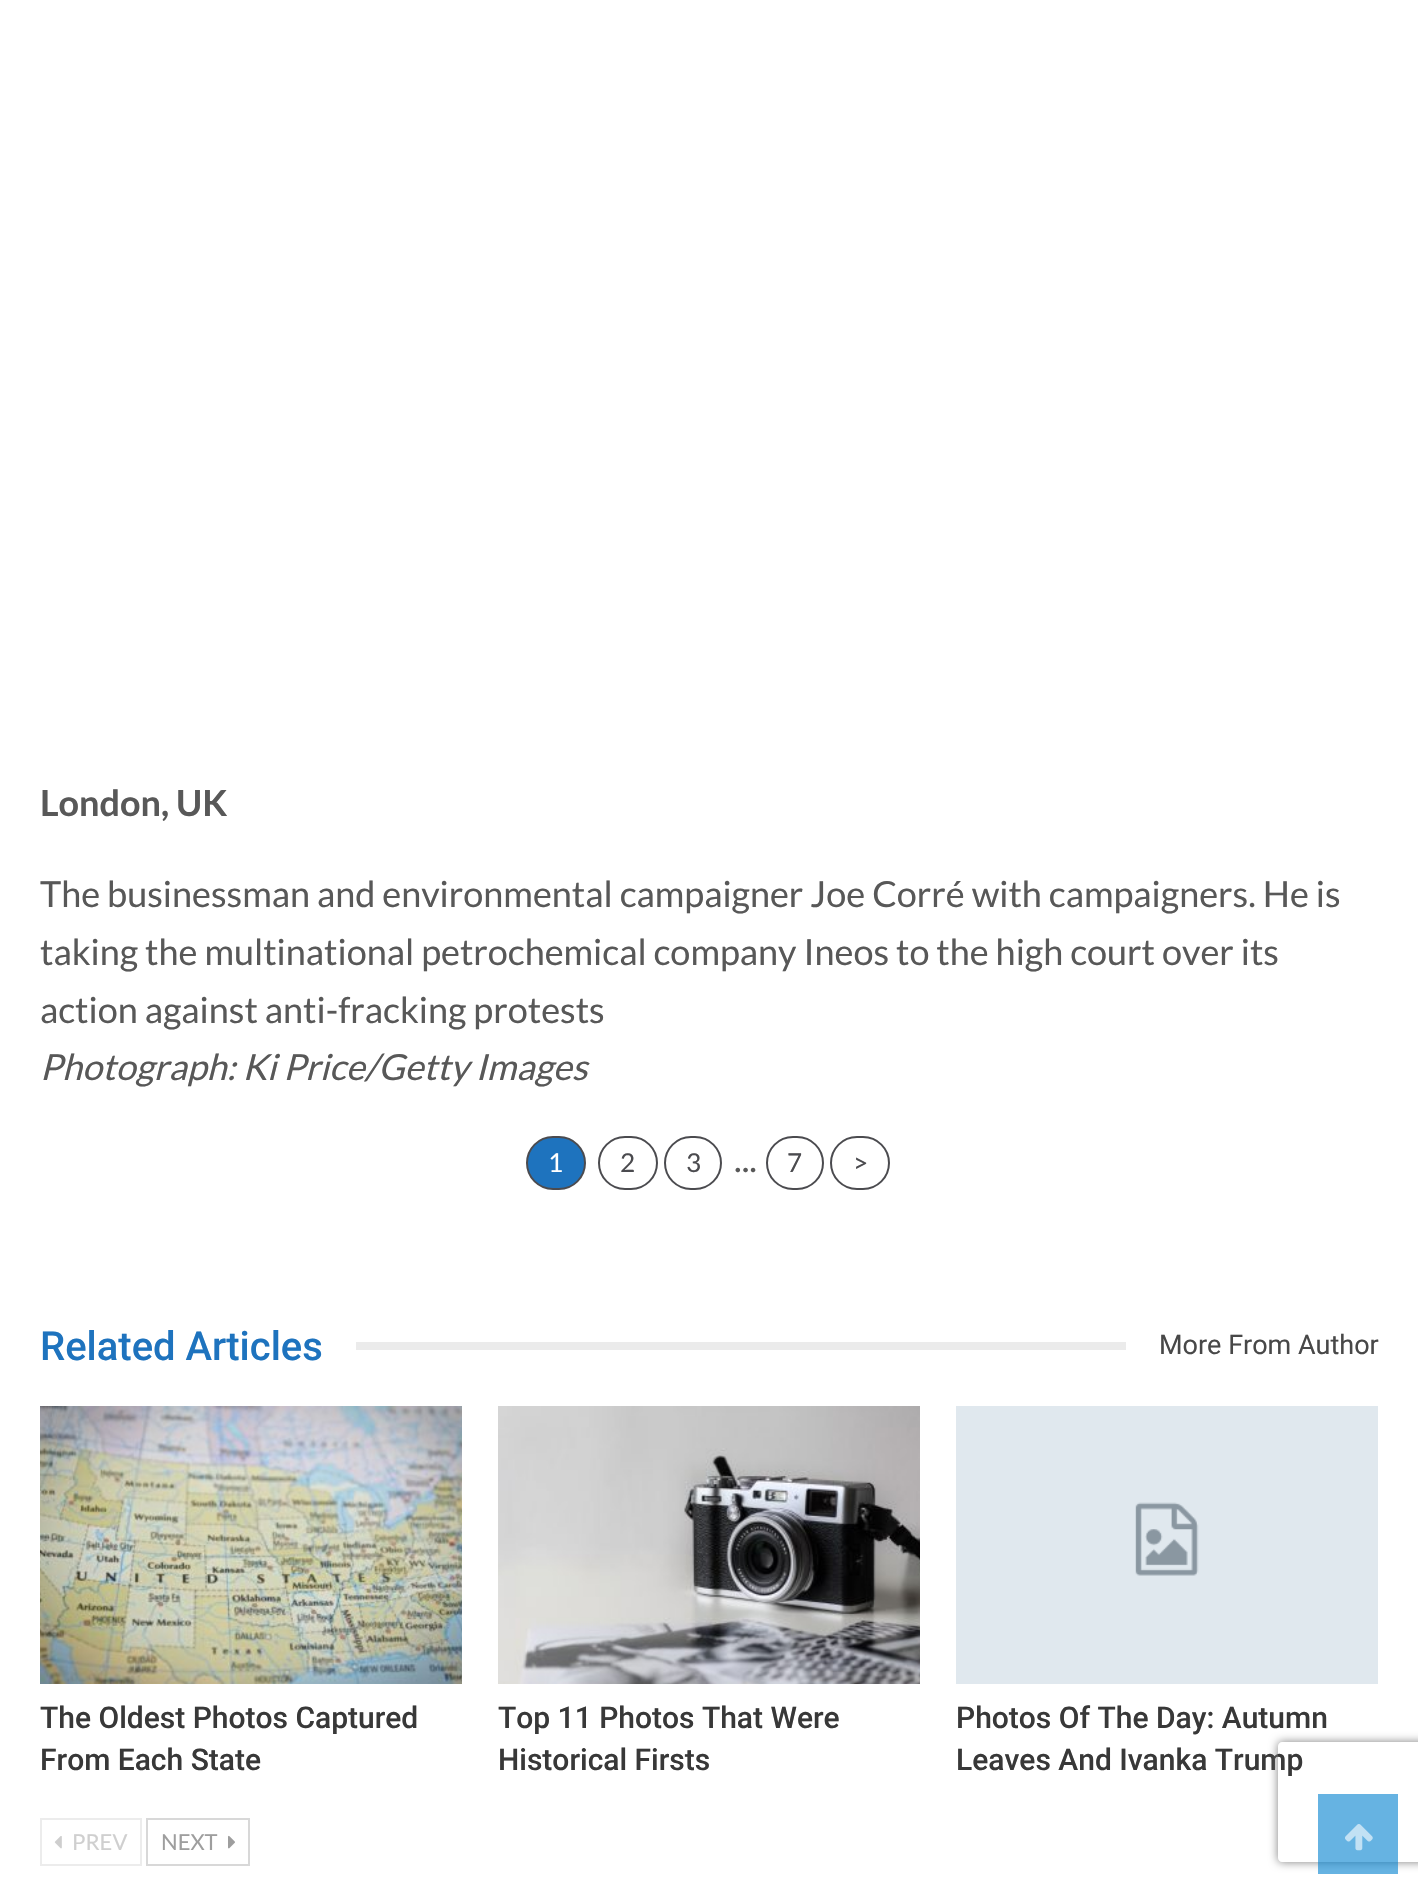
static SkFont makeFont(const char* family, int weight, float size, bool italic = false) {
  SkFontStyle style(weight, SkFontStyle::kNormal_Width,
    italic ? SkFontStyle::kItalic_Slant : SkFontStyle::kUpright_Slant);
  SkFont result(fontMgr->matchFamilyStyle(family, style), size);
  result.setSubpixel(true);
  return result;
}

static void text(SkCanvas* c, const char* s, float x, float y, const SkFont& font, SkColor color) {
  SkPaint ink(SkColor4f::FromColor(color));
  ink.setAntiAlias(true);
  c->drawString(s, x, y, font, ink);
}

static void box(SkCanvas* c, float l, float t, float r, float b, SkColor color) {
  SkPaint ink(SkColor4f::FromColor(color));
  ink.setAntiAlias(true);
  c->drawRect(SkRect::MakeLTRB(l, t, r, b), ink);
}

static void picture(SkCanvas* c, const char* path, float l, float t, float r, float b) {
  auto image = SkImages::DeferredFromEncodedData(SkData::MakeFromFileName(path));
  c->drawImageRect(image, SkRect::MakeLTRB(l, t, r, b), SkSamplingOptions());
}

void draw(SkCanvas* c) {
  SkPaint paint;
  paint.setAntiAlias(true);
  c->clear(0xffffffff);
  SkFont face1 = makeFont("Lato", 700, 36);
  text(c, "London, UK", 40, 816, face1, 0xff585858);
  SkFont face2 = makeFont("Lato", 400, 36);
  text(c, "The businessman and environmental campaigner Joe Corré with campaigners. He is", 40, 907, face2, 0xff585858);
  text(c, "taking the multinational petrochemical company Ineos to the high court over its", 40, 965, face2, 0xff585858);
  text(c, "action against anti-fracking protests", 40, 1023, face2, 0xff585858);
  SkFont face3 = makeFont("Lato", 400, 36, true);
  text(c, "Photograph: Ki Price/Getty Images", 40, 1080, face3, 0xff585858);
  paint.setColor(0xff1e73be);
  c->drawRoundRect(SkRect::MakeLTRB(527, 1137, 585, 1189), 26, 26, paint);
  paint.setStyle(SkPaint::kStroke_Style);
  paint.setStrokeWidth(2);
  paint.setColor(0xff4b4b4f);
  c->drawRoundRect(SkRect::MakeLTRB(527, 1137, 585, 1189), 26, 26, paint);
  SkFont face4 = makeFont("Lato", 400, 26);
  text(c, "1", 548, 1172, face4, 0xffffffff);
  c->drawRoundRect(SkRect::MakeLTRB(599, 1137, 657, 1189), 26, 26, paint);
  text(c, "2", 620, 1172, face4, 0xff4b4b4f);
  c->drawRoundRect(SkRect::MakeLTRB(665, 1137, 721, 1189), 26, 26, paint);
  text(c, "3", 686, 1172, face4, 0xff4b4b4f);
  c->drawRoundRect(SkRect::MakeLTRB(767, 1137, 823, 1189), 26, 26, paint);
  text(c, "7", 787, 1172, face4, 0xff4b4b4f);
  c->drawRoundRect(SkRect::MakeLTRB(831, 1137, 889, 1189), 26, 26, paint);
  text(c, ">", 853, 1172, face4, 0xff4b4b4f);
  text(c, "...", 734, 1172, face2, 0xff585858);
  SkFont face5 = makeFont("Roboto", 500, 40);
  text(c, "Related Articles", 40, 1360, face5, 0xff1e73be);
  box(c, 356, 1342, 1126, 1350, 0xffebebeb);
  SkFont face6 = makeFont("Roboto", 400, 27);
  text(c, "More From Author", 1159, 1354, face6, 0xff484848);
  picture(c, "img_01.png", 40, 1406, 462, 1684);
  SkFont face7 = makeFont("Roboto", 500, 30);
  text(c, "The Oldest Photos Captured", 40, 1728, face7, 0xff383838);
  text(c, "From Each State", 40, 1770, face7, 0xff383838);
  picture(c, "img_02.png", 498, 1406, 920, 1684);
  text(c, "Top 11 Photos That Were", 498, 1728, face7, 0xff383838);
  text(c, "Historical Firsts", 498, 1770, face7, 0xff383838);
  picture(c, "img_03.png", 956, 1406, 1378, 1684);
  text(c, "Photos Of The Day: Autumn", 956, 1728, face7, 0xff383838);
  text(c, "Leaves And Ivanka Trump", 956, 1770, face7, 0xff383838);
  paint.setColor(0xffececec);
  c->drawRect(SkRect::MakeLTRB(41, 1819, 141, 1865), paint);
  picture(c, "img_04.png", 54, 1836, 62, 1849);
  SkFont face8 = makeFont("Lato", 400, 22);
  text(c, "PREV", 72, 1850, face8, 0xffcfcfcf);
  paint.setColor(0xffd8d8d8);
  c->drawRect(SkRect::MakeLTRB(147, 1819, 249, 1865), paint);
  text(c, "NEXT", 161, 1850, face8, 0xff9e9e9e);
  picture(c, "img_05.png", 228, 1835, 235, 1849);
  c->save();
  c->clipPath(SkPathBuilder(SkPathFillType::kEvenOdd).moveTo(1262, 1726).lineTo(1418, 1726).lineTo(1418, 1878).lineTo(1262, 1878).close().moveTo(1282, 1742).lineTo(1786, 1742).cubicTo(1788, 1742, 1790, 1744, 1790, 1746).lineTo(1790, 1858).cubicTo(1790, 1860, 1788, 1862, 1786, 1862).lineTo(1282, 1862).cubicTo(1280, 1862, 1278, 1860, 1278, 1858).lineTo(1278, 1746).cubicTo(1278, 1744, 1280, 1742, 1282, 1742).close().detach(), true);
  paint.setStyle(SkPaint::kFill_Style);
  paint.setColor(0xff808080);
  paint.setMaskFilter(SkMaskFilter::MakeBlur(kNormal_SkBlurStyle, 5));
  c->drawRoundRect(SkRect::MakeLTRB(1278, 1742, 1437, 1862), 4, 4, paint);
  paint.setMaskFilter(nullptr);
  c->restore();
  box(c, 1318, 1794, 1398, 1874, 0x990080ce);
  picture(c, "img_06.png", 1345, 1824, 1373, 1851);
}
